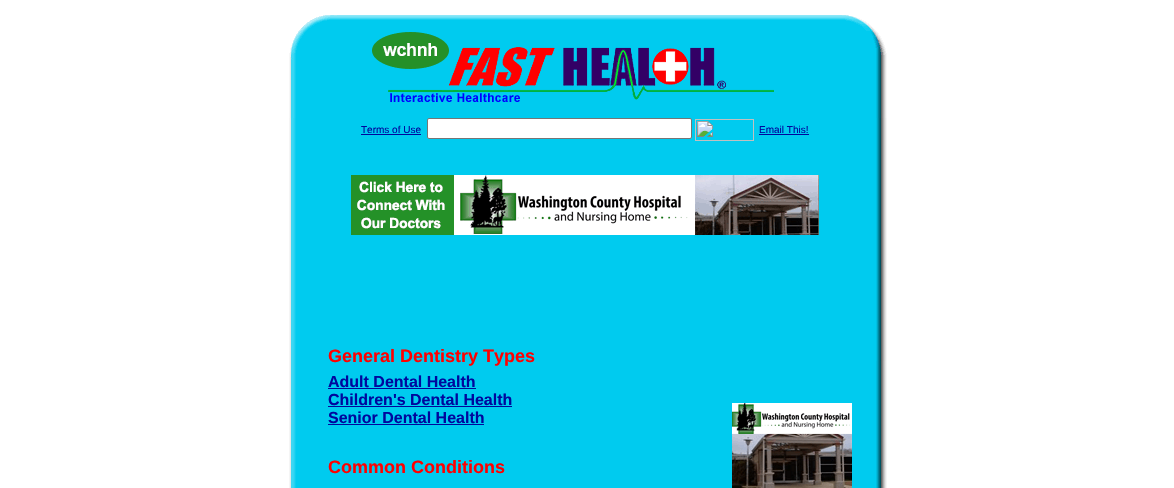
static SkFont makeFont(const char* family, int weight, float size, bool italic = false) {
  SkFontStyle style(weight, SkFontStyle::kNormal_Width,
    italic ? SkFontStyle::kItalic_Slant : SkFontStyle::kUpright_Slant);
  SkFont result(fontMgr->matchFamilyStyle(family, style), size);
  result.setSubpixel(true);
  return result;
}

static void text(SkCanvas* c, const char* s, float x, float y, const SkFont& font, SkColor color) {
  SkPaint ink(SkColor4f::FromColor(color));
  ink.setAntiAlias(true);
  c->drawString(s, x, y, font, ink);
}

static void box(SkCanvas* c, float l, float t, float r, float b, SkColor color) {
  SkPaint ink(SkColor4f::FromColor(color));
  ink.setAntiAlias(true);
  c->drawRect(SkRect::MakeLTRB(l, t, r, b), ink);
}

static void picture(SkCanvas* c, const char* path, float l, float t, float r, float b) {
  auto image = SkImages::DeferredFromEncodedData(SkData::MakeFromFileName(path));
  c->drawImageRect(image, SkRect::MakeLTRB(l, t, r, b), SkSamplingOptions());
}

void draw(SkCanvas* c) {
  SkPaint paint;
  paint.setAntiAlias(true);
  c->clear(0xffffffff);
  picture(c, "img_01.png", 289, 15, 887, 118);
  picture(c, "img_02.png", 289, 118, 308, 361);
  box(c, 308, 118, 862, 488, 0xff00cbef);
  SkFont face1 = makeFont("Liberation Sans", 400, 10);
  text(c, "Terms of Use", 361, 133, face1, 0xff00079d);
  box(c, 361, 134, 421, 135, 0xff00079d);
  paint.setColor(0xffffffff);
  c->drawRoundRect(SkRect::MakeLTRB(427.5f, 118.5f, 691.5f, 138.5f), 1.5f, 1.5f, paint);
  paint.setStyle(SkPaint::kStroke_Style);
  paint.setStrokeWidth(1);
  paint.setColor(0xff767676);
  c->drawRoundRect(SkRect::MakeLTRB(427.5f, 118.5f, 691.5f, 138.5f), 1.5f, 1.5f, paint);
  picture(c, "img_03.png", 695, 119, 754, 141);
  text(c, "Email This!", 759, 133, face1, 0xff00079d);
  box(c, 759, 134, 809, 135, 0xff00079d);
  picture(c, "img_04.png", 351, 175, 819, 235);
  SkFont face2 = makeFont("Liberation Sans", 700, 18);
  text(c, "General Dentistry Types", 328, 362, face2, 0xffff0000);
  SkFont face3 = makeFont("Liberation Sans", 700, 16);
  text(c, "Adult Dental Health", 328, 387, face3, 0xff00079d);
  box(c, 328, 388, 476, 389, 0xff00079d);
  text(c, "Children's Dental Health", 328, 405, face3, 0xff00079d);
  box(c, 328, 406, 512, 407, 0xff00079d);
  text(c, "Senior Dental Health", 328, 423, face3, 0xff00079d);
  box(c, 328, 424, 484, 425, 0xff00079d);
  text(c, "Common Conditions", 328, 473, face2, 0xffff0000);
  picture(c, "img_05.png", 732, 403, 852, 488);
  picture(c, "img_06.png", 862, 118, 887, 361);
  picture(c, "img_07.png", 289, 361, 308, 488);
  picture(c, "img_08.png", 862, 361, 887, 488);
}
